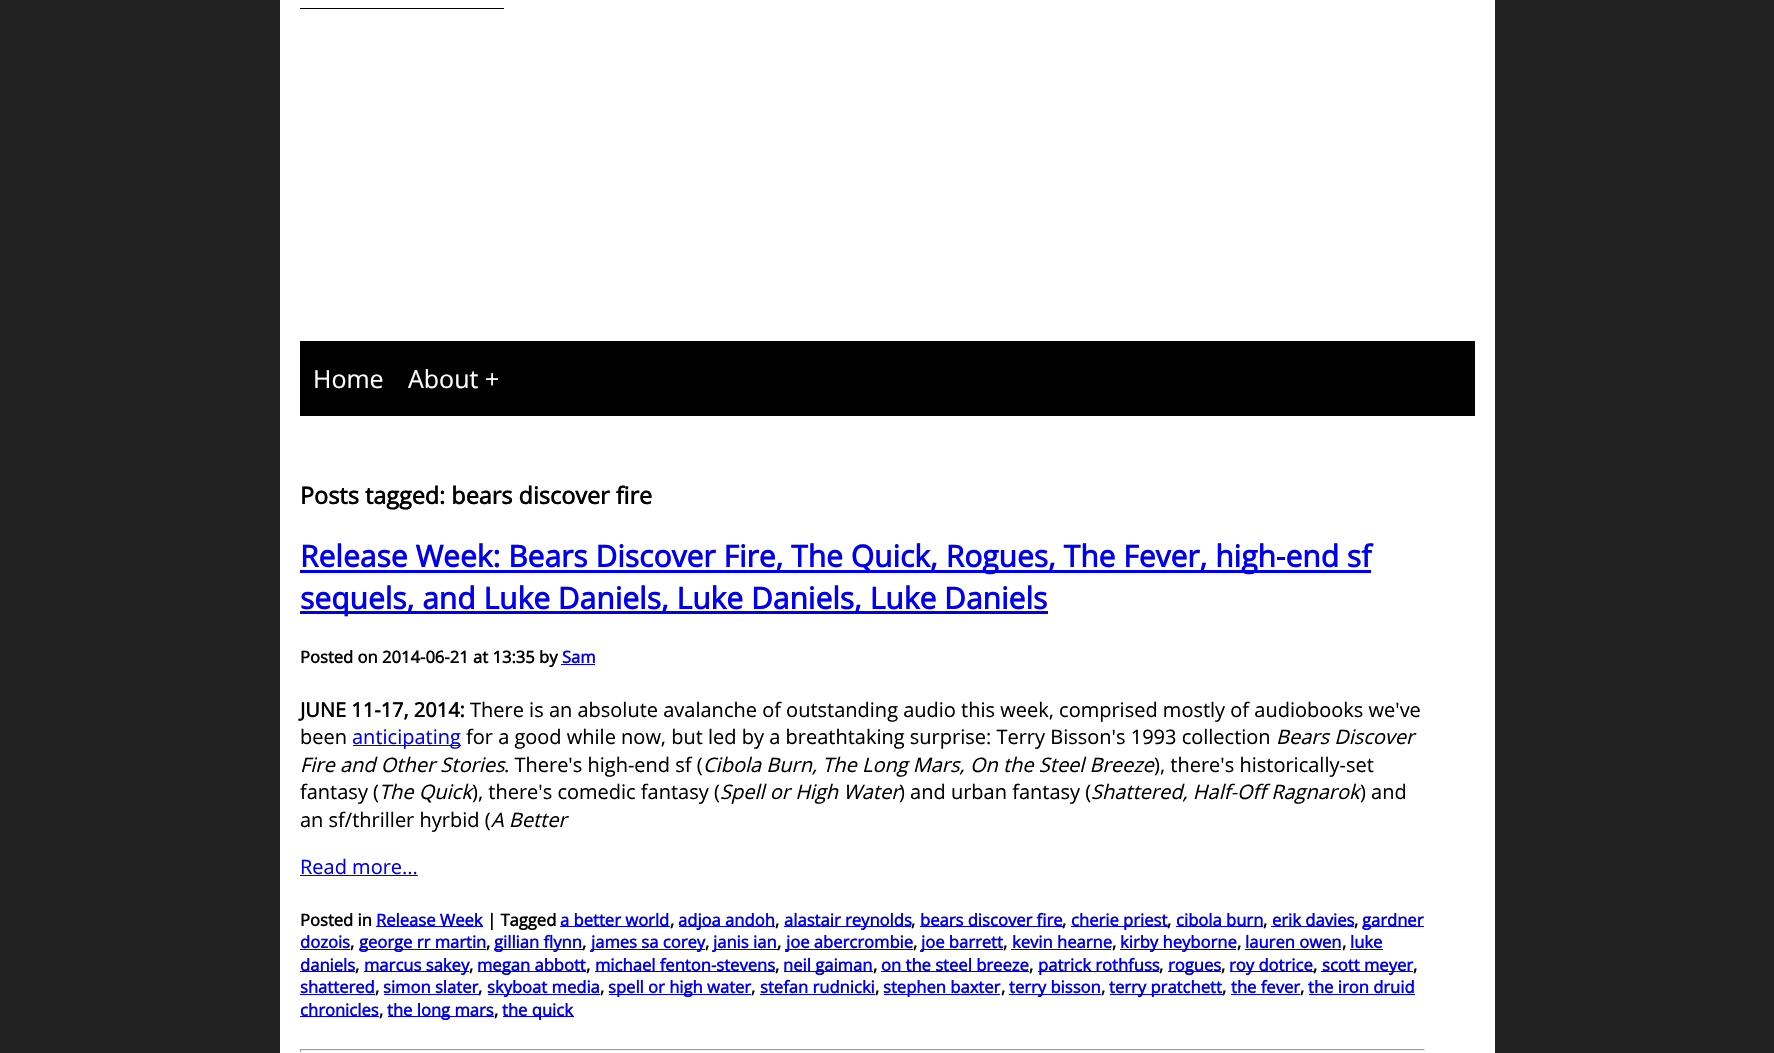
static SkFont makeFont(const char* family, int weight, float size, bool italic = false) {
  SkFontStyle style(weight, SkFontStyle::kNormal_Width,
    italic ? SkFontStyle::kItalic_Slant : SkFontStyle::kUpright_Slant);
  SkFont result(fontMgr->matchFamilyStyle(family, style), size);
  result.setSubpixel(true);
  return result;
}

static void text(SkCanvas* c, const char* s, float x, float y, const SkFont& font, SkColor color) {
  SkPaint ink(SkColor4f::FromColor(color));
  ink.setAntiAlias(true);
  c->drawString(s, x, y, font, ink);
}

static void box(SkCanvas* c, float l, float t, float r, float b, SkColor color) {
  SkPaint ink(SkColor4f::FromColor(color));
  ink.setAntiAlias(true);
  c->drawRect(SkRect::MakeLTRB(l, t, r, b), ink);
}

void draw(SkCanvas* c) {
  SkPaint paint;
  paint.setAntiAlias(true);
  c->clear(0xff212121);
  box(c, 280, 0, 1495, 1053, 0xffffffff);
  box(c, 300, 8, 504, 9, 0xff000000);
  box(c, 300, 341, 1475, 416, 0xff000000);
  SkFont face1 = makeFont("Open Sans", 400, 25);
  text(c, "Home", 313, 388, face1, 0xffffffff);
  text(c, "About +", 408, 388, face1, 0xffffffff);
  SkFont face2 = makeFont("Open Sans", 700, 23.4f);
  text(c, "Posts tagged: bears discover fire", 300, 504, face2, 0xff000000);
  box(c, 300, 570, 1371, 573, 0xff0000ee);
  SkFont face3 = makeFont("Open Sans", 700, 30);
  text(c, "Release Week: Bears Discover Fire, The Quick, Rogues, The Fever, high-end sf", 300, 567, face3, 0xff0000ee);
  box(c, 300, 611, 1048, 614, 0xff0000ee);
  text(c, "sequels, and Luke Daniels, Luke Daniels, Luke Daniels", 300, 609, face3, 0xff0000ee);
  SkFont face4 = makeFont("Open Sans", 700, 16.6f);
  text(c, "Posted on 2014-06-21 at 13:35 by", 300, 663, face4, 0xff000000);
  text(c, "Sam", 562, 663, face4, 0xff0000ee);
  box(c, 561, 664, 595, 665, 0xff0000ee);
  SkFont face5 = makeFont("Open Sans", 700, 20);
  text(c, "JUNE 11-17, 2014:", 300, 717, face5, 0xff000000);
  SkFont face6 = makeFont("Open Sans", 400, 20);
  text(c, "There is an absolute avalanche of outstanding audio this week, comprised mostly of audiobooks we've", 470, 717, face6, 0xff000000);
  text(c, "been", 300, 744, face6, 0xff000000);
  box(c, 353, 745, 461, 746, 0xff0000ee);
  text(c, "anticipating", 352, 744, face6, 0xff0000ee);
  text(c, "for a good while now, but led by a breathtaking surprise: Terry Bisson's 1993 collection", 466, 744, face6, 0xff000000);
  SkFont face7 = makeFont("Open Sans", 400, 20, true);
  text(c, "Bears Discover", 1276, 744, face7, 0xff000000);
  text(c, "Fire and Other Stories", 300, 772, face7, 0xff000000);
  text(c, ". There's high-end sf (", 504, 772, face6, 0xff000000);
  text(c, "Cibola Burn, The Long Mars, On the Steel Breeze", 703, 772, face7, 0xff000000);
  text(c, "), there's historically-set", 1154, 772, face6, 0xff000000);
  text(c, "fantasy (", 300, 799, face6, 0xff000000);
  text(c, "The Quick", 379, 799, face7, 0xff000000);
  text(c, "), there's comedic fantasy (", 472, 799, face6, 0xff000000);
  text(c, "Spell or High Water", 720, 799, face7, 0xff000000);
  text(c, ") and urban fantasy (", 899, 799, face6, 0xff000000);
  text(c, "Shattered, Half-Off Ragnarok", 1091, 799, face7, 0xff000000);
  text(c, ") and", 1360, 799, face6, 0xff000000);
  text(c, "an sf/thriller hyrbid (", 300, 827, face6, 0xff000000);
  text(c, "A Better", 491, 827, face7, 0xff000000);
  text(c, "Read more...", 300, 874, face6, 0xff0000ee);
  box(c, 300, 875, 418, 876, 0xff0000ee);
  text(c, "Posted in", 300, 926, face4, 0xff000000);
  box(c, 376, 926, 483, 927, 0xff0000ee);
  text(c, "Release Week", 376, 926, face4, 0xff0000ee);
  text(c, "| Tagged", 487, 926, face4, 0xff000000);
  box(c, 560, 926, 670, 927, 0xff0000ee);
  text(c, "a better world", 560, 926, face4, 0xff0000ee);
  text(c, ",", 670, 926, face4, 0xff000000);
  box(c, 679, 926, 775, 927, 0xff0000ee);
  text(c, "adjoa andoh", 678, 926, face4, 0xff0000ee);
  text(c, ",", 775, 926, face4, 0xff000000);
  box(c, 784, 926, 911, 927, 0xff0000ee);
  text(c, "alastair reynolds", 784, 926, face4, 0xff0000ee);
  text(c, ",", 911, 926, face4, 0xff000000);
  box(c, 920, 926, 1063, 927, 0xff0000ee);
  text(c, "bears discover fire", 920, 926, face4, 0xff0000ee);
  text(c, ",", 1062, 926, face4, 0xff000000);
  box(c, 1071, 926, 1168, 927, 0xff0000ee);
  text(c, "cherie priest", 1071, 926, face4, 0xff0000ee);
  text(c, ",", 1167, 926, face4, 0xff000000);
  box(c, 1176, 926, 1263, 927, 0xff0000ee);
  text(c, "cibola burn", 1176, 926, face4, 0xff0000ee);
  text(c, ",", 1263, 926, face4, 0xff000000);
  box(c, 1271, 926, 1354, 927, 0xff0000ee);
  text(c, "erik davies", 1272, 926, face4, 0xff0000ee);
  text(c, ",", 1354, 926, face4, 0xff000000);
  box(c, 1363, 926, 1424, 927, 0xff0000ee);
  text(c, "gardner", 1362, 926, face4, 0xff0000ee);
  text(c, "dozois", 300, 948, face4, 0xff0000ee);
  text(c, ",", 350, 948, face4, 0xff000000);
  box(c, 300, 949, 350, 950, 0xff0000ee);
  box(c, 359, 949, 486, 950, 0xff0000ee);
  text(c, "george rr martin", 359, 948, face4, 0xff0000ee);
  text(c, ",", 486, 948, face4, 0xff000000);
  box(c, 494, 949, 583, 950, 0xff0000ee);
  text(c, "gillian flynn", 494, 948, face4, 0xff0000ee);
  text(c, ",", 582, 948, face4, 0xff000000);
  box(c, 591, 949, 705, 950, 0xff0000ee);
  text(c, "james sa corey", 591, 948, face4, 0xff0000ee);
  text(c, ",", 705, 948, face4, 0xff000000);
  box(c, 714, 949, 778, 950, 0xff0000ee);
  text(c, "janis ian", 713, 948, face4, 0xff0000ee);
  text(c, ",", 777, 948, face4, 0xff000000);
  box(c, 785, 949, 913, 950, 0xff0000ee);
  text(c, "joe abercrombie", 786, 948, face4, 0xff0000ee);
  text(c, ",", 913, 948, face4, 0xff000000);
  box(c, 921, 949, 1003, 950, 0xff0000ee);
  text(c, "joe barrett", 921, 948, face4, 0xff0000ee);
  text(c, ",", 1003, 948, face4, 0xff000000);
  text(c, "kevin hearne", 1012, 948, face4, 0xff0000ee);
  text(c, ",", 1112, 948, face4, 0xff000000);
  box(c, 1011, 949, 1111, 950, 0xff0000ee);
  box(c, 1120, 949, 1236, 950, 0xff0000ee);
  text(c, "kirby heyborne", 1120, 948, face4, 0xff0000ee);
  text(c, ",", 1237, 948, face4, 0xff000000);
  text(c, "lauren owen", 1245, 948, face4, 0xff0000ee);
  text(c, ",", 1342, 948, face4, 0xff000000);
  box(c, 1245, 949, 1341, 950, 0xff0000ee);
  box(c, 1350, 949, 1383, 950, 0xff0000ee);
  text(c, "luke", 1350, 948, face4, 0xff0000ee);
  box(c, 300, 971, 355, 972, 0xff0000ee);
  text(c, "daniels", 300, 971, face4, 0xff0000ee);
  text(c, ",", 355, 971, face4, 0xff000000);
  box(c, 364, 971, 469, 972, 0xff0000ee);
  text(c, "marcus sakey", 364, 971, face4, 0xff0000ee);
  text(c, ",", 469, 971, face4, 0xff000000);
  box(c, 478, 971, 586, 972, 0xff0000ee);
  text(c, "megan abbott", 477, 971, face4, 0xff0000ee);
  text(c, ",", 586, 971, face4, 0xff000000);
  box(c, 595, 971, 775, 972, 0xff0000ee);
  text(c, "michael fenton-stevens", 595, 971, face4, 0xff0000ee);
  text(c, ",", 775, 971, face4, 0xff000000);
  box(c, 784, 971, 873, 972, 0xff0000ee);
  text(c, "neil gaiman", 783, 971, face4, 0xff0000ee);
  text(c, ",", 873, 971, face4, 0xff000000);
  box(c, 881, 971, 1029, 972, 0xff0000ee);
  text(c, "on the steel breeze", 881, 971, face4, 0xff0000ee);
  text(c, ",", 1029, 971, face4, 0xff000000);
  box(c, 1038, 971, 1159, 972, 0xff0000ee);
  text(c, "patrick rothfuss", 1038, 971, face4, 0xff0000ee);
  text(c, ",", 1159, 971, face4, 0xff000000);
  box(c, 1168, 971, 1221, 972, 0xff0000ee);
  text(c, "rogues", 1168, 971, face4, 0xff0000ee);
  text(c, ",", 1221, 971, face4, 0xff000000);
  box(c, 1230, 971, 1314, 972, 0xff0000ee);
  text(c, "roy dotrice", 1229, 971, face4, 0xff0000ee);
  text(c, ",", 1313, 971, face4, 0xff000000);
  box(c, 1321, 971, 1413, 972, 0xff0000ee);
  text(c, "scott meyer", 1322, 971, face4, 0xff0000ee);
  text(c, ",", 1413, 971, face4, 0xff000000);
  text(c, "shattered", 300, 993, face4, 0xff0000ee);
  text(c, ",", 375, 993, face4, 0xff000000);
  box(c, 300, 994, 375, 995, 0xff0000ee);
  text(c, "simon slater", 383, 993, face4, 0xff0000ee);
  text(c, ",", 478, 993, face4, 0xff000000);
  box(c, 384, 994, 479, 995, 0xff0000ee);
  box(c, 488, 994, 600, 995, 0xff0000ee);
  text(c, "skyboat media", 487, 993, face4, 0xff0000ee);
  text(c, ",", 600, 993, face4, 0xff000000);
  box(c, 609, 994, 751, 995, 0xff0000ee);
  text(c, "spell or high water", 608, 993, face4, 0xff0000ee);
  text(c, ",", 751, 993, face4, 0xff000000);
  text(c, "stefan rudnicki", 760, 993, face4, 0xff0000ee);
  text(c, ",", 875, 993, face4, 0xff000000);
  box(c, 760, 994, 875, 995, 0xff0000ee);
  box(c, 884, 994, 1000, 995, 0xff0000ee);
  text(c, "stephen baxter", 883, 993, face4, 0xff0000ee);
  text(c, ",", 1001, 993, face4, 0xff000000);
  box(c, 1009, 994, 1101, 995, 0xff0000ee);
  text(c, "terry bisson", 1009, 993, face4, 0xff0000ee);
  text(c, ",", 1101, 993, face4, 0xff000000);
  box(c, 1110, 994, 1223, 995, 0xff0000ee);
  text(c, "terry pratchett", 1109, 993, face4, 0xff0000ee);
  text(c, ",", 1222, 993, face4, 0xff000000);
  text(c, "the fever", 1231, 993, face4, 0xff0000ee);
  text(c, ",", 1300, 993, face4, 0xff000000);
  box(c, 1231, 994, 1300, 995, 0xff0000ee);
  box(c, 1309, 994, 1415, 995, 0xff0000ee);
  text(c, "the iron druid", 1308, 993, face4, 0xff0000ee);
  box(c, 300, 1016, 379, 1017, 0xff0000ee);
  text(c, "chronicles", 300, 1016, face4, 0xff0000ee);
  text(c, ",", 379, 1016, face4, 0xff000000);
  box(c, 388, 1016, 494, 1017, 0xff0000ee);
  text(c, "the long mars", 387, 1016, face4, 0xff0000ee);
  text(c, ",", 494, 1016, face4, 0xff000000);
  box(c, 503, 1016, 574, 1017, 0xff0000ee);
  text(c, "the quick", 502, 1016, face4, 0xff0000ee);
  box(c, 300, 1049, 1425, 1050, 0xff9f9f9f);
  box(c, 1424, 1049, 1425, 1052, 0xffeeeeee);
  box(c, 300, 1050, 1425, 1051, 0xffeeeeee);
  box(c, 300, 1049, 301, 1052, 0xff9f9f9f);
}
